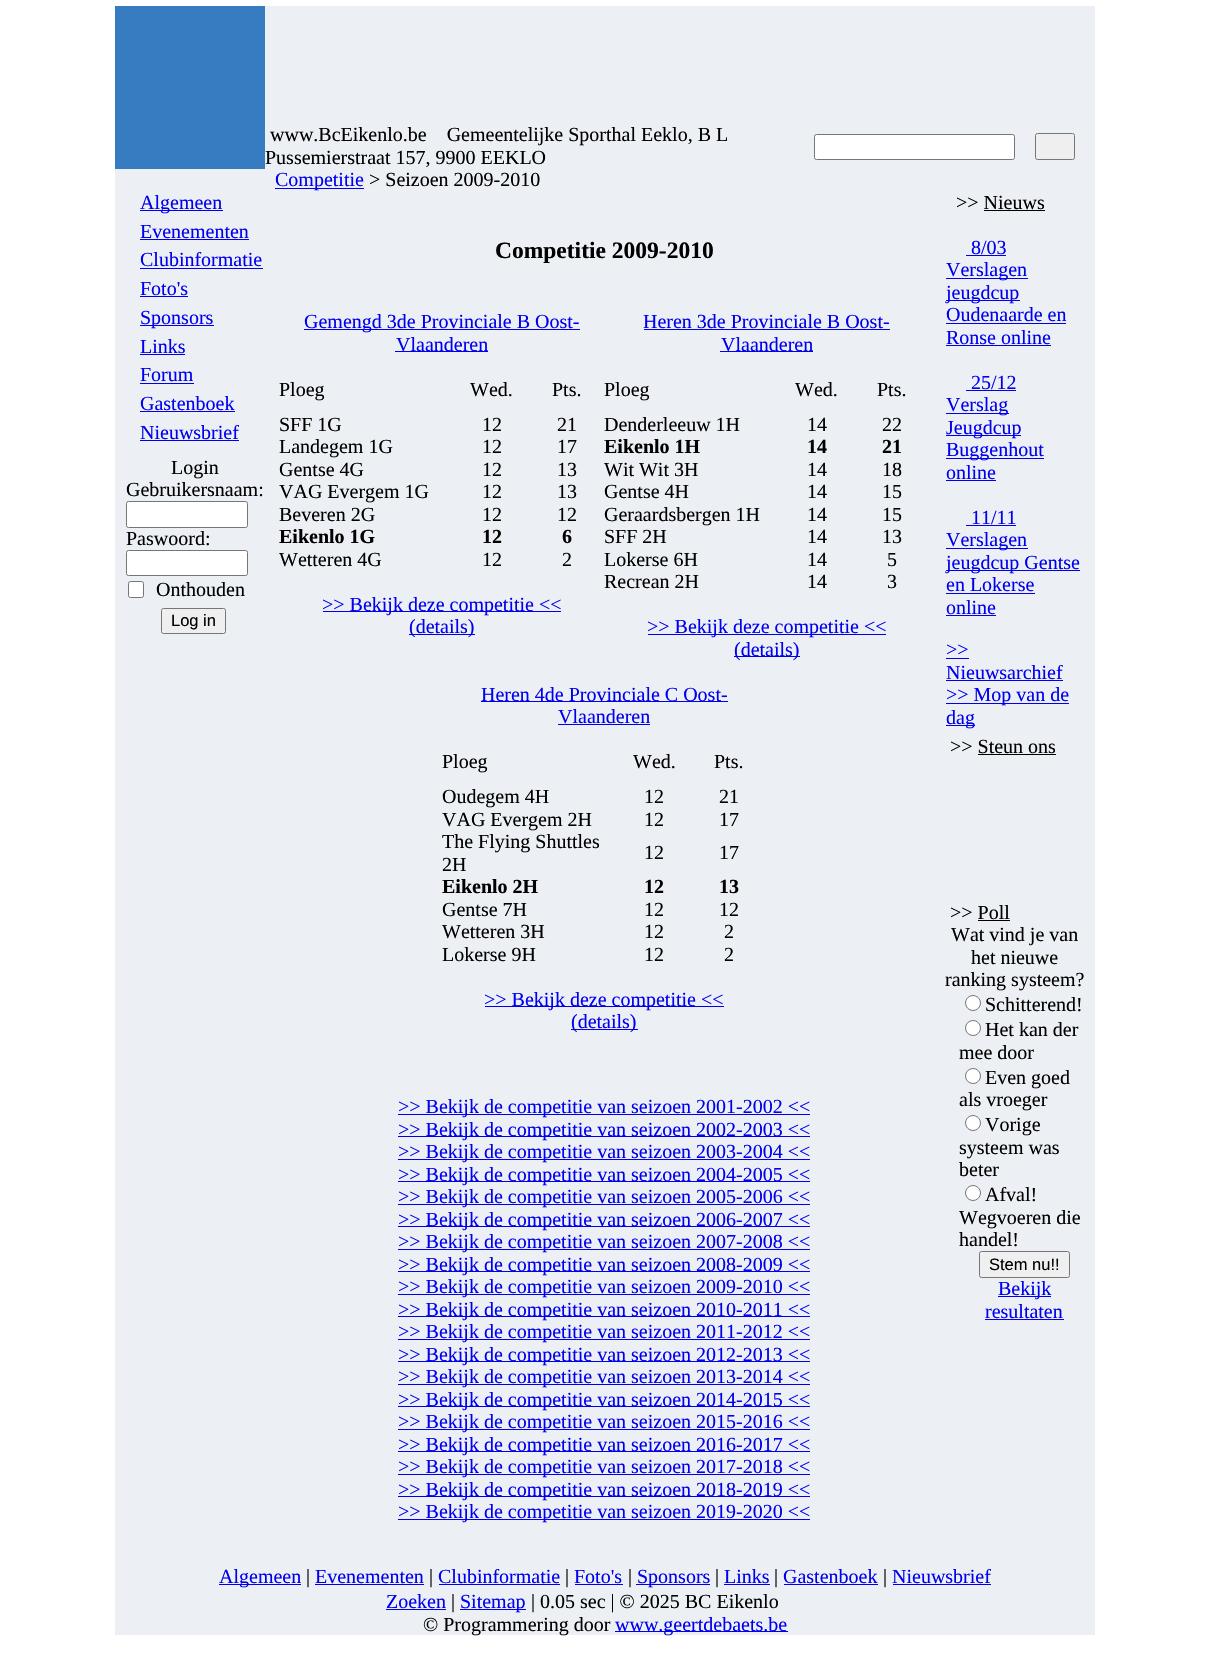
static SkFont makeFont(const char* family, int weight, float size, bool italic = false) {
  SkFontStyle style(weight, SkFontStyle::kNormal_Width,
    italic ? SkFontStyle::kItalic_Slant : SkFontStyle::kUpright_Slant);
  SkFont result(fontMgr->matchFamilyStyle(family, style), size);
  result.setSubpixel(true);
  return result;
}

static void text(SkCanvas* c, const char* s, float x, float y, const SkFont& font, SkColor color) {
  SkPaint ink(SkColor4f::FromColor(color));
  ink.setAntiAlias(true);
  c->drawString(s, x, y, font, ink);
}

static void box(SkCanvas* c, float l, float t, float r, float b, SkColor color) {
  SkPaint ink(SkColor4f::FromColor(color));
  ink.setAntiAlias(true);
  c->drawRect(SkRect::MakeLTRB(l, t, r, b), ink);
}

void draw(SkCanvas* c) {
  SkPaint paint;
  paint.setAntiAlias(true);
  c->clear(0xffffffff);
  box(c, 115, 6, 1095, 1635, 0xffecf0f4);
  box(c, 115, 6, 265, 169, 0xff377cc1);
  SkFont face1 = makeFont("Liberation Serif", 400, 20);
  text(c, "www.BcEikenlo.be    Gemeentelijke Sporthal Eeklo, B L", 270, 141, face1, 0xff000000);
  text(c, "Pussemierstraat 157, 9900 EEKLO", 265, 164, face1, 0xff000000);
  paint.setColor(0xffffffff);
  c->drawRoundRect(SkRect::MakeLTRB(814.5f, 134.5f, 1014.5f, 159.5f), 2, 2, paint);
  paint.setStyle(SkPaint::kStroke_Style);
  paint.setStrokeWidth(1);
  paint.setColor(0xff767676);
  c->drawRoundRect(SkRect::MakeLTRB(814.5f, 134.5f, 1014.5f, 159.5f), 2, 2, paint);
  paint.setStyle(SkPaint::kFill_Style);
  paint.setColor(0xffefefef);
  c->drawRoundRect(SkRect::MakeLTRB(1035.5f, 133.5f, 1074.5f, 159.5f), 2, 2, paint);
  paint.setStyle(SkPaint::kStroke_Style);
  paint.setColor(0xff767676);
  c->drawRoundRect(SkRect::MakeLTRB(1035.5f, 133.5f, 1074.5f, 159.5f), 2, 2, paint);
  box(c, 275, 188, 364, 189, 0xff0000ee);
  text(c, "Competitie", 275, 186, face1, 0xff0000ee);
  text(c, "> Seizoen 2009-2010", 369, 186, face1, 0xff000000);
  box(c, 140, 210, 223, 211, 0xff0000ee);
  text(c, "Algemeen", 140, 209, face1, 0xff0000ee);
  text(c, "Evenementen", 140, 238, face1, 0xff0000ee);
  box(c, 140, 239, 249, 240, 0xff0000ee);
  text(c, "Clubinformatie", 140, 266, face1, 0xff0000ee);
  box(c, 140, 268, 263, 269, 0xff0000ee);
  text(c, "Foto's", 140, 295, face1, 0xff0000ee);
  box(c, 140, 296, 188, 297, 0xff0000ee);
  box(c, 140, 325, 214, 326, 0xff0000ee);
  text(c, "Sponsors", 140, 324, face1, 0xff0000ee);
  text(c, "Links", 140, 353, face1, 0xff0000ee);
  box(c, 140, 354, 185, 355, 0xff0000ee);
  text(c, "Forum", 140, 381, face1, 0xff0000ee);
  box(c, 140, 383, 194, 384, 0xff0000ee);
  text(c, "Gastenboek", 140, 410, face1, 0xff0000ee);
  box(c, 140, 411, 235, 412, 0xff0000ee);
  text(c, "Nieuwsbrief", 140, 439, face1, 0xff0000ee);
  box(c, 140, 440, 239, 441, 0xff0000ee);
  text(c, "Login", 171, 474, face1, 0xff000000);
  text(c, "Gebruikersnaam:", 126, 496, face1, 0xff000000);
  paint.setStyle(SkPaint::kFill_Style);
  paint.setColor(0xffffffff);
  c->drawRoundRect(SkRect::MakeLTRB(126.5f, 501.5f, 247.5f, 527.5f), 2, 2, paint);
  paint.setStyle(SkPaint::kStroke_Style);
  paint.setColor(0xff767676);
  c->drawRoundRect(SkRect::MakeLTRB(126.5f, 501.5f, 247.5f, 527.5f), 2, 2, paint);
  text(c, "Paswoord:", 126, 545, face1, 0xff000000);
  paint.setStyle(SkPaint::kFill_Style);
  paint.setColor(0xffffffff);
  c->drawRoundRect(SkRect::MakeLTRB(126.5f, 550.5f, 247.5f, 575.5f), 2, 2, paint);
  paint.setStyle(SkPaint::kStroke_Style);
  paint.setColor(0xff767676);
  c->drawRoundRect(SkRect::MakeLTRB(126.5f, 550.5f, 247.5f, 575.5f), 2, 2, paint);
  paint.setStyle(SkPaint::kFill_Style);
  paint.setColor(0xffffffff);
  c->drawRoundRect(SkRect::MakeLTRB(128.5f, 581.5f, 143.5f, 597.5f), 2, 2, paint);
  paint.setStyle(SkPaint::kStroke_Style);
  paint.setColor(0xff767676);
  c->drawRoundRect(SkRect::MakeLTRB(128.5f, 581.5f, 143.5f, 597.5f), 2, 2, paint);
  text(c, "Onthouden", 156, 596, face1, 0xff000000);
  paint.setStyle(SkPaint::kFill_Style);
  paint.setColor(0xffefefef);
  c->drawRoundRect(SkRect::MakeLTRB(161.5f, 608.5f, 225.5f, 633.5f), 2, 2, paint);
  paint.setStyle(SkPaint::kStroke_Style);
  paint.setColor(0xff767676);
  c->drawRoundRect(SkRect::MakeLTRB(161.5f, 608.5f, 225.5f, 633.5f), 2, 2, paint);
  SkFont face2 = makeFont("Liberation Sans", 400, 16.5f);
  text(c, "Log in", 171, 626, face2, 0xff000000);
  SkFont face3 = makeFont("Liberation Serif", 700, 23.5f);
  text(c, "Competitie 2009-2010", 495, 258, face3, 0xff000000);
  box(c, 304, 329, 580, 330, 0xff0000ee);
  text(c, "Gemengd 3de Provinciale B Oost-", 304, 328, face1, 0xff0000ee);
  box(c, 395, 351, 488, 352, 0xff0000ee);
  text(c, "Vlaanderen", 396, 351, face1, 0xff0000ee);
  text(c, "Ploeg", 279, 396, face1, 0xff000000);
  text(c, "Wed.", 470, 396, face1, 0xff000000);
  text(c, "Pts.", 552, 396, face1, 0xff000000);
  text(c, "SFF 1G", 279, 431, face1, 0xff000000);
  text(c, "12", 482, 431, face1, 0xff000000);
  text(c, "21", 557, 431, face1, 0xff000000);
  text(c, "Landegem 1G", 279, 453, face1, 0xff000000);
  text(c, "12", 482, 453, face1, 0xff000000);
  text(c, "17", 557, 453, face1, 0xff000000);
  text(c, "Gentse 4G", 279, 476, face1, 0xff000000);
  text(c, "12", 482, 476, face1, 0xff000000);
  text(c, "13", 557, 476, face1, 0xff000000);
  text(c, "VAG Evergem 1G", 279, 498, face1, 0xff000000);
  text(c, "12", 482, 498, face1, 0xff000000);
  text(c, "13", 557, 498, face1, 0xff000000);
  text(c, "Beveren 2G", 279, 521, face1, 0xff000000);
  text(c, "12", 482, 521, face1, 0xff000000);
  text(c, "12", 557, 521, face1, 0xff000000);
  SkFont face4 = makeFont("Liberation Serif", 700, 20);
  text(c, "Eikenlo 1G", 279, 543, face4, 0xff000000);
  text(c, "12", 482, 543, face4, 0xff000000);
  text(c, "6", 562, 543, face4, 0xff000000);
  text(c, "Wetteren 4G", 279, 566, face1, 0xff000000);
  text(c, "12", 482, 566, face1, 0xff000000);
  text(c, "2", 562, 566, face1, 0xff000000);
  box(c, 323, 611, 561, 612, 0xff0000ee);
  text(c, ">> Bekijk deze competitie <<", 322, 611, face1, 0xff0000ee);
  box(c, 409, 634, 475, 635, 0xff0000ee);
  text(c, "(details)", 409, 633, face1, 0xff0000ee);
  text(c, "Heren 3de Provinciale B Oost-", 643, 328, face1, 0xff0000ee);
  box(c, 644, 329, 890, 330, 0xff0000ee);
  box(c, 720, 351, 813, 352, 0xff0000ee);
  text(c, "Vlaanderen", 721, 351, face1, 0xff0000ee);
  text(c, "Ploeg", 604, 396, face1, 0xff000000);
  text(c, "Wed.", 795, 396, face1, 0xff000000);
  text(c, "Pts.", 877, 396, face1, 0xff000000);
  text(c, "Denderleeuw 1H", 604, 431, face1, 0xff000000);
  text(c, "14", 807, 431, face1, 0xff000000);
  text(c, "22", 882, 431, face1, 0xff000000);
  text(c, "Eikenlo 1H", 604, 453, face4, 0xff000000);
  text(c, "14", 807, 453, face4, 0xff000000);
  text(c, "21", 882, 453, face4, 0xff000000);
  text(c, "Wit Wit 3H", 604, 476, face1, 0xff000000);
  text(c, "14", 807, 476, face1, 0xff000000);
  text(c, "18", 882, 476, face1, 0xff000000);
  text(c, "Gentse 4H", 604, 498, face1, 0xff000000);
  text(c, "14", 807, 498, face1, 0xff000000);
  text(c, "15", 882, 498, face1, 0xff000000);
  text(c, "Geraardsbergen 1H", 604, 521, face1, 0xff000000);
  text(c, "14", 807, 521, face1, 0xff000000);
  text(c, "15", 882, 521, face1, 0xff000000);
  text(c, "SFF 2H", 604, 543, face1, 0xff000000);
  text(c, "14", 807, 543, face1, 0xff000000);
  text(c, "13", 882, 543, face1, 0xff000000);
  text(c, "Lokerse 6H", 604, 566, face1, 0xff000000);
  text(c, "14", 807, 566, face1, 0xff000000);
  text(c, "5", 887, 566, face1, 0xff000000);
  text(c, "Recrean 2H", 604, 588, face1, 0xff000000);
  text(c, "14", 807, 588, face1, 0xff000000);
  text(c, "3", 887, 588, face1, 0xff000000);
  box(c, 648, 634, 886, 635, 0xff0000ee);
  text(c, ">> Bekijk deze competitie <<", 647, 633, face1, 0xff0000ee);
  box(c, 734, 656, 800, 657, 0xff0000ee);
  text(c, "(details)", 734, 656, face1, 0xff0000ee);
  box(c, 481, 701, 728, 702, 0xff0000ee);
  text(c, "Heren 4de Provinciale C Oost-", 481, 701, face1, 0xff0000ee);
  text(c, "Vlaanderen", 558, 723, face1, 0xff0000ee);
  box(c, 558, 724, 650, 725, 0xff0000ee);
  text(c, "Ploeg", 442, 768, face1, 0xff000000);
  text(c, "Wed.", 633, 768, face1, 0xff000000);
  text(c, "Pts.", 714, 768, face1, 0xff000000);
  text(c, "Oudegem 4H", 442, 803, face1, 0xff000000);
  text(c, "12", 644, 803, face1, 0xff000000);
  text(c, "21", 719, 803, face1, 0xff000000);
  text(c, "VAG Evergem 2H", 442, 826, face1, 0xff000000);
  text(c, "12", 644, 826, face1, 0xff000000);
  text(c, "17", 719, 826, face1, 0xff000000);
  text(c, "The Flying Shuttles", 442, 848, face1, 0xff000000);
  text(c, "2H", 442, 871, face1, 0xff000000);
  text(c, "12", 644, 859, face1, 0xff000000);
  text(c, "17", 719, 859, face1, 0xff000000);
  text(c, "Eikenlo 2H", 442, 893, face4, 0xff000000);
  text(c, "12", 644, 893, face4, 0xff000000);
  text(c, "13", 719, 893, face4, 0xff000000);
  text(c, "Gentse 7H", 442, 916, face1, 0xff000000);
  text(c, "12", 644, 916, face1, 0xff000000);
  text(c, "12", 719, 916, face1, 0xff000000);
  text(c, "Wetteren 3H", 442, 938, face1, 0xff000000);
  text(c, "12", 644, 938, face1, 0xff000000);
  text(c, "2", 724, 938, face1, 0xff000000);
  text(c, "Lokerse 9H", 442, 961, face1, 0xff000000);
  text(c, "12", 644, 961, face1, 0xff000000);
  text(c, "2", 724, 961, face1, 0xff000000);
  box(c, 485, 1006, 724, 1007, 0xff0000ee);
  text(c, ">> Bekijk deze competitie <<", 484, 1006, face1, 0xff0000ee);
  box(c, 571, 1029, 638, 1030, 0xff0000ee);
  text(c, "(details)", 571, 1028, face1, 0xff0000ee);
  box(c, 398, 1114, 810, 1115, 0xff0000ee);
  text(c, ">> Bekijk de competitie van seizoen 2001-2002 <<", 398, 1113, face1, 0xff0000ee);
  box(c, 398, 1136, 810, 1137, 0xff0000ee);
  text(c, ">> Bekijk de competitie van seizoen 2002-2003 <<", 398, 1136, face1, 0xff0000ee);
  box(c, 398, 1159, 810, 1160, 0xff0000ee);
  text(c, ">> Bekijk de competitie van seizoen 2003-2004 <<", 398, 1158, face1, 0xff0000ee);
  box(c, 398, 1181, 810, 1182, 0xff0000ee);
  text(c, ">> Bekijk de competitie van seizoen 2004-2005 <<", 398, 1181, face1, 0xff0000ee);
  box(c, 398, 1204, 810, 1205, 0xff0000ee);
  text(c, ">> Bekijk de competitie van seizoen 2005-2006 <<", 398, 1203, face1, 0xff0000ee);
  box(c, 398, 1226, 810, 1227, 0xff0000ee);
  text(c, ">> Bekijk de competitie van seizoen 2006-2007 <<", 398, 1226, face1, 0xff0000ee);
  box(c, 398, 1249, 810, 1250, 0xff0000ee);
  text(c, ">> Bekijk de competitie van seizoen 2007-2008 <<", 398, 1248, face1, 0xff0000ee);
  box(c, 398, 1271, 810, 1272, 0xff0000ee);
  text(c, ">> Bekijk de competitie van seizoen 2008-2009 <<", 398, 1271, face1, 0xff0000ee);
  box(c, 398, 1294, 810, 1295, 0xff0000ee);
  text(c, ">> Bekijk de competitie van seizoen 2009-2010 <<", 398, 1293, face1, 0xff0000ee);
  box(c, 398, 1316, 810, 1317, 0xff0000ee);
  text(c, ">> Bekijk de competitie van seizoen 2010-2011 <<", 398, 1316, face1, 0xff0000ee);
  box(c, 398, 1339, 810, 1340, 0xff0000ee);
  text(c, ">> Bekijk de competitie van seizoen 2011-2012 <<", 398, 1338, face1, 0xff0000ee);
  box(c, 398, 1361, 810, 1362, 0xff0000ee);
  text(c, ">> Bekijk de competitie van seizoen 2012-2013 <<", 398, 1361, face1, 0xff0000ee);
  box(c, 398, 1384, 810, 1385, 0xff0000ee);
  text(c, ">> Bekijk de competitie van seizoen 2013-2014 <<", 398, 1383, face1, 0xff0000ee);
  box(c, 398, 1406, 810, 1407, 0xff0000ee);
  text(c, ">> Bekijk de competitie van seizoen 2014-2015 <<", 398, 1406, face1, 0xff0000ee);
  box(c, 398, 1429, 810, 1430, 0xff0000ee);
  text(c, ">> Bekijk de competitie van seizoen 2015-2016 <<", 398, 1428, face1, 0xff0000ee);
  box(c, 398, 1451, 810, 1452, 0xff0000ee);
  text(c, ">> Bekijk de competitie van seizoen 2016-2017 <<", 398, 1451, face1, 0xff0000ee);
  box(c, 398, 1474, 810, 1475, 0xff0000ee);
  text(c, ">> Bekijk de competitie van seizoen 2017-2018 <<", 398, 1473, face1, 0xff0000ee);
  box(c, 398, 1496, 810, 1497, 0xff0000ee);
  text(c, ">> Bekijk de competitie van seizoen 2018-2019 <<", 398, 1496, face1, 0xff0000ee);
  box(c, 398, 1519, 810, 1520, 0xff0000ee);
  text(c, ">> Bekijk de competitie van seizoen 2019-2020 <<", 398, 1518, face1, 0xff0000ee);
  text(c, ">> Nieuws", 956, 209, face1, 0xff000000);
  box(c, 984, 210, 1045, 211, 0xff000000);
  text(c, "8/03", 971, 254, face1, 0xff0000ee);
  box(c, 966, 255, 1006, 256, 0xff0000ee);
  box(c, 946, 278, 1028, 279, 0xff0000ee);
  text(c, "Verslagen", 946, 276, face1, 0xff0000ee);
  box(c, 946, 300, 1020, 301, 0xff0000ee);
  text(c, "jeugdcup", 946, 299, face1, 0xff0000ee);
  text(c, "Oudenaarde en", 946, 321, face1, 0xff0000ee);
  box(c, 946, 323, 1066, 324, 0xff0000ee);
  text(c, "Ronse online", 946, 344, face1, 0xff0000ee);
  box(c, 946, 345, 1051, 346, 0xff0000ee);
  text(c, "25/12", 971, 389, face1, 0xff0000ee);
  box(c, 966, 390, 1016, 391, 0xff0000ee);
  box(c, 946, 413, 1009, 414, 0xff0000ee);
  text(c, "Verslag", 946, 411, face1, 0xff0000ee);
  box(c, 946, 435, 1021, 436, 0xff0000ee);
  text(c, "Jeugdcup", 946, 434, face1, 0xff0000ee);
  box(c, 946, 458, 1044, 459, 0xff0000ee);
  text(c, "Buggenhout", 946, 456, face1, 0xff0000ee);
  text(c, "online", 946, 479, face1, 0xff0000ee);
  box(c, 946, 480, 996, 481, 0xff0000ee);
  text(c, "11/11", 971, 524, face1, 0xff0000ee);
  box(c, 966, 525, 1016, 526, 0xff0000ee);
  box(c, 946, 548, 1028, 549, 0xff0000ee);
  text(c, "Verslagen", 946, 546, face1, 0xff0000ee);
  box(c, 946, 570, 1080, 571, 0xff0000ee);
  text(c, "jeugdcup Gentse", 946, 569, face1, 0xff0000ee);
  text(c, "en Lokerse", 946, 591, face1, 0xff0000ee);
  box(c, 946, 593, 1035, 594, 0xff0000ee);
  text(c, "online", 946, 614, face1, 0xff0000ee);
  box(c, 946, 615, 996, 616, 0xff0000ee);
  text(c, ">>", 946, 656, face1, 0xff0000ee);
  box(c, 946, 658, 969, 659, 0xff0000ee);
  text(c, "Nieuwsarchief", 946, 679, face1, 0xff0000ee);
  box(c, 946, 680, 1063, 681, 0xff0000ee);
  box(c, 946, 703, 1069, 704, 0xff0000ee);
  text(c, ">> Mop van de", 946, 701, face1, 0xff0000ee);
  box(c, 946, 725, 975, 726, 0xff0000ee);
  text(c, "dag", 946, 724, face1, 0xff0000ee);
  text(c, ">> Steun ons", 950, 753, face1, 0xff000000);
  box(c, 978, 754, 1056, 755, 0xff000000);
  text(c, ">> Poll", 950, 919, face1, 0xff000000);
  box(c, 978, 920, 1010, 921, 0xff000000);
  text(c, "Wat vind je van", 951, 941, face1, 0xff000000);
  text(c, "het nieuwe", 971, 964, face1, 0xff000000);
  text(c, "ranking systeem?", 945, 986, face1, 0xff000000);
  paint.setStyle(SkPaint::kFill_Style);
  paint.setColor(0xffffffff);
  c->drawCircle(973, 1003, 7.5f, paint);
  paint.setStyle(SkPaint::kStroke_Style);
  paint.setColor(0xff767676);
  c->drawCircle(973, 1003, 7.5f, paint);
  text(c, "Schitterend!", 985, 1011, face1, 0xff000000);
  paint.setStyle(SkPaint::kFill_Style);
  paint.setColor(0xffffffff);
  c->drawCircle(973, 1028, 7.5f, paint);
  paint.setStyle(SkPaint::kStroke_Style);
  paint.setColor(0xff767676);
  c->drawCircle(973, 1028, 7.5f, paint);
  text(c, "Het kan der", 985, 1036, face1, 0xff000000);
  text(c, "mee door", 959, 1059, face1, 0xff000000);
  paint.setStyle(SkPaint::kFill_Style);
  paint.setColor(0xffffffff);
  c->drawCircle(973, 1076, 7.5f, paint);
  paint.setStyle(SkPaint::kStroke_Style);
  paint.setColor(0xff767676);
  c->drawCircle(973, 1076, 7.5f, paint);
  text(c, "Even goed", 985, 1084, face1, 0xff000000);
  text(c, "als vroeger", 959, 1106, face1, 0xff000000);
  paint.setStyle(SkPaint::kFill_Style);
  paint.setColor(0xffffffff);
  c->drawCircle(973, 1123, 7.5f, paint);
  paint.setStyle(SkPaint::kStroke_Style);
  paint.setColor(0xff767676);
  c->drawCircle(973, 1123, 7.5f, paint);
  text(c, "Vorige", 985, 1131, face1, 0xff000000);
  text(c, "systeem was", 959, 1154, face1, 0xff000000);
  text(c, "beter", 959, 1176, face1, 0xff000000);
  paint.setStyle(SkPaint::kFill_Style);
  paint.setColor(0xffffffff);
  c->drawCircle(973, 1193, 7.5f, paint);
  paint.setStyle(SkPaint::kStroke_Style);
  paint.setColor(0xff767676);
  c->drawCircle(973, 1193, 7.5f, paint);
  text(c, "Afval!", 985, 1201, face1, 0xff000000);
  text(c, "Wegvoeren die", 959, 1224, face1, 0xff000000);
  text(c, "handel!", 959, 1246, face1, 0xff000000);
  paint.setStyle(SkPaint::kFill_Style);
  paint.setColor(0xffefefef);
  c->drawRoundRect(SkRect::MakeLTRB(979.5f, 1251.5f, 1069.5f, 1277.5f), 2, 2, paint);
  paint.setStyle(SkPaint::kStroke_Style);
  paint.setColor(0xff767676);
  c->drawRoundRect(SkRect::MakeLTRB(979.5f, 1251.5f, 1069.5f, 1277.5f), 2, 2, paint);
  text(c, "Stem nu!!", 989, 1270, face2, 0xff000000);
  box(c, 998, 1296, 1051, 1297, 0xff0000ee);
  text(c, "Bekijk", 998, 1295, face1, 0xff0000ee);
  text(c, "resultaten", 985, 1318, face1, 0xff0000ee);
  box(c, 985, 1319, 1064, 1320, 0xff0000ee);
  box(c, 219, 1584, 301, 1585, 0xff0000ee);
  text(c, "Algemeen", 219, 1583, face1, 0xff0000ee);
  text(c, "|", 306, 1583, face1, 0xff000000);
  text(c, "Evenementen", 315, 1583, face1, 0xff0000ee);
  box(c, 315, 1584, 424, 1585, 0xff0000ee);
  text(c, "|", 429, 1583, face1, 0xff000000);
  text(c, "Clubinformatie", 438, 1583, face1, 0xff0000ee);
  box(c, 439, 1584, 560, 1585, 0xff0000ee);
  text(c, "|", 565, 1583, face1, 0xff000000);
  text(c, "Foto's", 574, 1583, face1, 0xff0000ee);
  box(c, 575, 1584, 623, 1585, 0xff0000ee);
  text(c, "|", 628, 1583, face1, 0xff000000);
  box(c, 636, 1584, 710, 1585, 0xff0000ee);
  text(c, "Sponsors", 637, 1583, face1, 0xff0000ee);
  text(c, "|", 715, 1583, face1, 0xff000000);
  text(c, "Links", 724, 1583, face1, 0xff0000ee);
  box(c, 724, 1584, 770, 1585, 0xff0000ee);
  text(c, "|", 774, 1583, face1, 0xff000000);
  text(c, "Gastenboek", 783, 1583, face1, 0xff0000ee);
  box(c, 784, 1584, 878, 1585, 0xff0000ee);
  text(c, "|", 883, 1583, face1, 0xff000000);
  text(c, "Nieuwsbrief", 892, 1583, face1, 0xff0000ee);
  box(c, 893, 1584, 991, 1585, 0xff0000ee);
  text(c, "Zoeken", 386, 1608, face1, 0xff0000ee);
  box(c, 386, 1609, 446, 1610, 0xff0000ee);
  text(c, "|", 451, 1608, face1, 0xff000000);
  box(c, 460, 1609, 526, 1610, 0xff0000ee);
  text(c, "Sitemap", 460, 1608, face1, 0xff0000ee);
  text(c, "| 0.05 sec | © 2025 BC Eikenlo", 531, 1608, face1, 0xff000000);
  text(c, "© Programmering door", 423, 1631, face1, 0xff000000);
  box(c, 615, 1631, 788, 1632, 0xff0000ee);
  text(c, "www.geertdebaets.be", 615, 1631, face1, 0xff0000ee);
}
